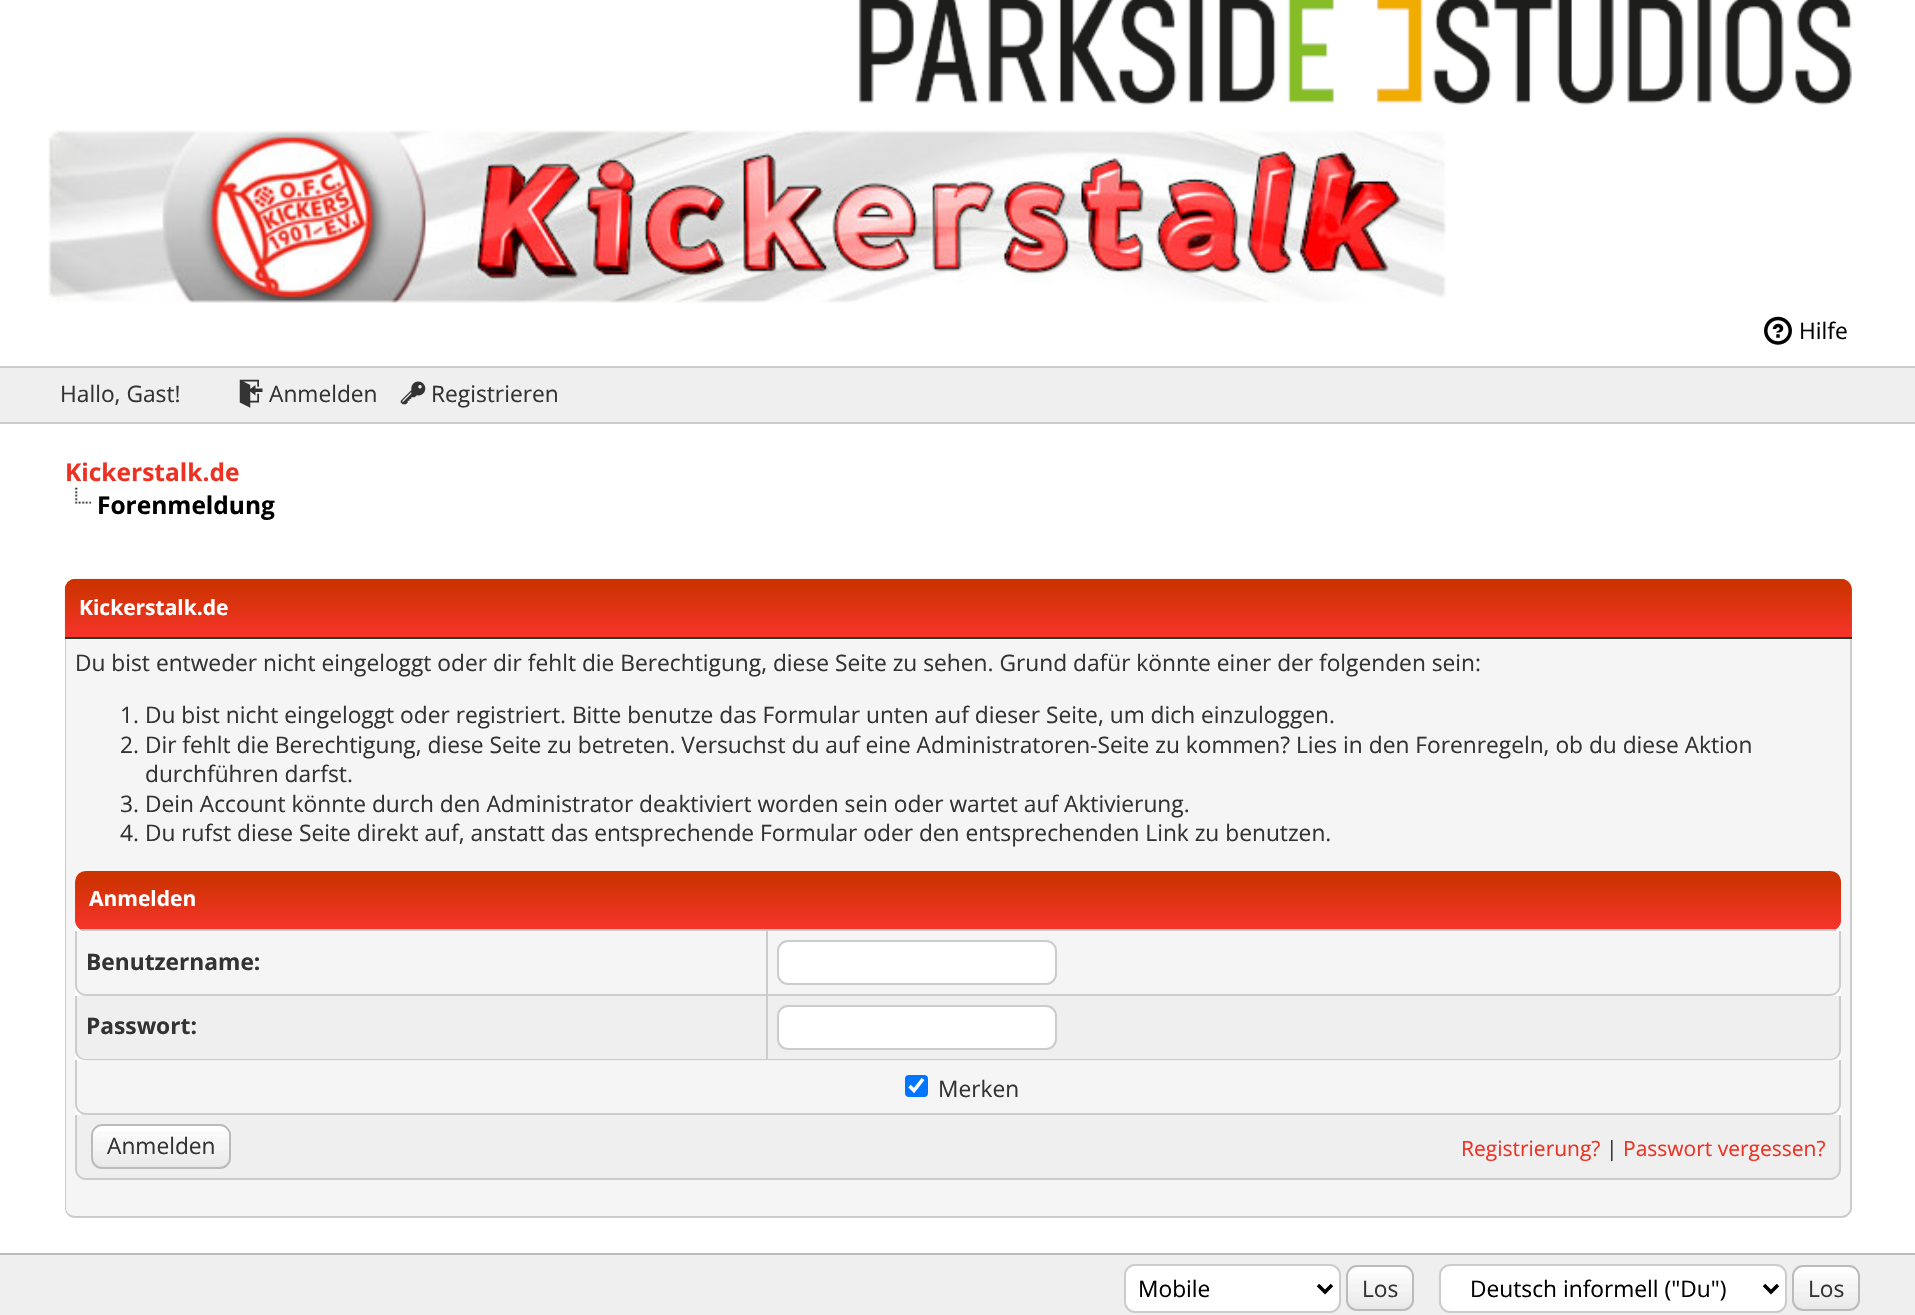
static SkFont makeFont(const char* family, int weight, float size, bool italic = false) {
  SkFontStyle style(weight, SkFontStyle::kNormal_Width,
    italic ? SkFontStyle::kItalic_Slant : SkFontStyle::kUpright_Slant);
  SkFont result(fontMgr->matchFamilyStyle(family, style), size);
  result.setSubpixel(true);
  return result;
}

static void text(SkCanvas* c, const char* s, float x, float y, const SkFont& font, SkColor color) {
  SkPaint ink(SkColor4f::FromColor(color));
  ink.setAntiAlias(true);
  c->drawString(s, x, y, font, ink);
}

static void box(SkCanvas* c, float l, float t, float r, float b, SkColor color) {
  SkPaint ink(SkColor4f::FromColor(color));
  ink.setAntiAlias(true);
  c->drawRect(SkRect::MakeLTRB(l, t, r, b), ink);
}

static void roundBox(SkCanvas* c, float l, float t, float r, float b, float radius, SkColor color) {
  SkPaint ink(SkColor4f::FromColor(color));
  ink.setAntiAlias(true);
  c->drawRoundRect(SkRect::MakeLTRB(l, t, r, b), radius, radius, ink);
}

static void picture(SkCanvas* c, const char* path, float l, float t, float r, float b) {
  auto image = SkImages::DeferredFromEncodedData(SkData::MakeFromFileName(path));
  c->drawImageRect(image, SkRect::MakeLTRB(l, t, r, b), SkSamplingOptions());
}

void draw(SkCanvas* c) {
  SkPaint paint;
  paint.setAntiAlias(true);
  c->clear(0xffffffff);
  picture(c, "img_01.png", 858, 0, 1852, 105);
  picture(c, "img_02.png", 48, 130, 1446, 303);
  picture(c, "img_03.png", 1764, 316, 1792, 345);
  SkFont face1 = makeFont("Open Sans", 400, 22.75f);
  text(c, "Hilfe", 1799, 339, face1, 0xff000000);
  box(c, 0, 368, 1915, 422, 0xffefefef);
  box(c, 0, 366, 1915, 368, 0xffcccccc);
  box(c, 0, 422, 1915, 424, 0xffcccccc);
  text(c, "Hallo, Gast!", 60, 402, face1, 0xff333333);
  picture(c, "img_04.png", 239, 379, 263, 408);
  text(c, "Anmelden", 269, 402, face1, 0xff333333);
  picture(c, "img_05.png", 400, 381, 426, 405);
  text(c, "Registrieren", 431, 402, face1, 0xff333333);
  SkFont face2 = makeFont("Open Sans", 700, 24.5f);
  text(c, "Kickerstalk.de", 65, 481, face2, 0xffed3224);
  picture(c, "img_06.png", 74, 487, 91, 504);
  text(c, "Forenmeldung", 97, 514, face2, 0xff000000);
  paint.setColor(0xffff3333);
  c->drawPath(SkPathBuilder().moveTo(76, 579).lineTo(1841, 579).cubicTo(1847, 579, 1852, 584, 1852, 590).lineTo(1852, 639).lineTo(65, 639).lineTo(65, 590).cubicTo(65, 584, 70, 579, 76, 579).close().detach(), paint);
  picture(c, "img_07.png", 64, 578, 1852, 638);
  box(c, 65, 637, 1852, 639, 0xff263c30);
  SkFont face3 = makeFont("Open Sans", 700, 21);
  text(c, "Kickerstalk.de", 79, 615, face3, 0xffffffff);
  paint.setColor(0xfff5f5f5);
  c->drawPath(SkPathBuilder().moveTo(65, 639).lineTo(1852, 639).lineTo(1852, 1207).cubicTo(1852, 1213, 1847, 1218, 1841, 1218).lineTo(76, 1218).cubicTo(70, 1218, 65, 1213, 65, 1207).close().detach(), paint);
  paint.setColor(0xffcccccc);
  c->drawPath(SkPathBuilder(SkPathFillType::kEvenOdd).moveTo(65, 639).lineTo(1852, 639).lineTo(1852, 1208).cubicTo(1852, 1213, 1847, 1218, 1841, 1218).lineTo(75, 1218).cubicTo(69, 1218, 65, 1213, 65, 1208).close().moveTo(66, 639).lineTo(1850, 639).lineTo(1850, 1208).cubicTo(1850, 1212, 1846, 1216, 1841, 1216).lineTo(75, 1216).cubicTo(70, 1216, 66, 1212, 66, 1208).close().detach(), paint);
  text(c, "Du bist entweder nicht eingeloggt oder dir fehlt die Berechtigung, diese Seite zu sehen. Grund dafür könnte einer der folgenden sein:", 75, 671, face1, 0xff333333);
  text(c, "1. Du bist nicht eingeloggt oder registriert. Bitte benutze das Formular unten auf dieser Seite, um dich einzuloggen.", 120, 723, face1, 0xff333333);
  text(c, "2. Dir fehlt die Berechtigung, diese Seite zu betreten. Versuchst du auf eine Administratoren-Seite zu kommen? Lies in den Forenregeln, ob du diese Aktion", 120, 753, face1, 0xff333333);
  text(c, "durchführen darfst.", 145, 782, face1, 0xff333333);
  text(c, "3. Dein Account könnte durch den Administrator deaktiviert worden sein oder wartet auf Aktivierung.", 120, 812, face1, 0xff333333);
  text(c, "4. Du rufst diese Seite direkt auf, anstatt das entsprechende Formular oder den entsprechenden Link zu benutzen.", 120, 841, face1, 0xff333333);
  roundBox(c, 75, 872, 1841, 1180, 12, 0xffffffff);
  roundBox(c, 75, 872, 1841, 931, 11, 0xffff3333);
  picture(c, "img_08.png", 75, 871, 1841, 930);
  box(c, 81, 929, 1836, 931, 0xffcccccc);
  text(c, "Anmelden", 89, 906, face3, 0xffffffff);
  paint.setColor(0xfff5f5f5);
  c->drawPath(SkPathBuilder().moveTo(75, 931).lineTo(767, 931).lineTo(767, 996).lineTo(86, 996).cubicTo(80, 996, 75, 991, 75, 985).close().detach(), paint);
  paint.setColor(0xffcccccc);
  c->drawPath(SkPathBuilder(SkPathFillType::kEvenOdd).moveTo(75, 931).lineTo(766, 931).lineTo(766, 996).lineTo(86, 996).cubicTo(80, 996, 75, 991, 75, 985).close().moveTo(77, 931).lineTo(766, 931).lineTo(766, 994).lineTo(86, 994).cubicTo(81, 994, 77, 990, 77, 985).close().detach(), paint);
  SkFont face4 = makeFont("Open Sans", 700, 22.75f);
  text(c, "Benutzername:", 86, 970, face4, 0xff333333);
  paint.setColor(0xfff5f5f5);
  c->drawPath(SkPathBuilder().moveTo(767, 931).lineTo(1841, 931).lineTo(1841, 985).cubicTo(1841, 991, 1836, 996, 1830, 996).lineTo(767, 996).close().detach(), paint);
  paint.setColor(0xffcccccc);
  c->drawPath(SkPathBuilder(SkPathFillType::kEvenOdd).moveTo(766, 931).lineTo(1841, 931).lineTo(1841, 985).cubicTo(1841, 991, 1836, 996, 1830, 996).lineTo(766, 996).close().moveTo(768, 931).lineTo(1839, 931).lineTo(1839, 985).cubicTo(1839, 990, 1835, 994, 1830, 994).lineTo(768, 994).close().detach(), paint);
  paint.setColor(0xffffffff);
  c->drawRoundRect(SkRect::MakeLTRB(778, 941, 1056, 984), 10, 10, paint);
  paint.setStyle(SkPaint::kStroke_Style);
  paint.setStrokeWidth(2);
  paint.setColor(0xffcccccc);
  c->drawRoundRect(SkRect::MakeLTRB(778, 941, 1056, 984), 10, 10, paint);
  paint.setStyle(SkPaint::kFill_Style);
  paint.setColor(0xffefefef);
  c->drawPath(SkPathBuilder().moveTo(75, 996).lineTo(767, 996).lineTo(767, 1061).lineTo(86, 1061).cubicTo(80, 1061, 75, 1056, 75, 1050).close().detach(), paint);
  paint.setColor(0xffcccccc);
  c->drawPath(SkPathBuilder(SkPathFillType::kEvenOdd).moveTo(75, 996).lineTo(766, 996).lineTo(766, 1060).lineTo(86, 1060).cubicTo(80, 1060, 75, 1056, 75, 1050).close().moveTo(77, 996).lineTo(766, 996).lineTo(766, 1059).lineTo(86, 1059).cubicTo(81, 1059, 77, 1055, 77, 1050).close().detach(), paint);
  text(c, "Passwort:", 86, 1034, face4, 0xff333333);
  paint.setColor(0xffefefef);
  c->drawPath(SkPathBuilder().moveTo(767, 996).lineTo(1841, 996).lineTo(1841, 1050).cubicTo(1841, 1056, 1836, 1061, 1830, 1061).lineTo(767, 1061).close().detach(), paint);
  paint.setColor(0xffcccccc);
  c->drawPath(SkPathBuilder(SkPathFillType::kEvenOdd).moveTo(766, 996).lineTo(1841, 996).lineTo(1841, 1050).cubicTo(1841, 1056, 1836, 1060, 1830, 1060).lineTo(766, 1060).close().moveTo(768, 996).lineTo(1839, 996).lineTo(1839, 1050).cubicTo(1839, 1055, 1835, 1059, 1830, 1059).lineTo(768, 1059).close().detach(), paint);
  paint.setColor(0xffffffff);
  c->drawRoundRect(SkRect::MakeLTRB(778, 1006, 1056, 1049), 10, 10, paint);
  paint.setStyle(SkPaint::kStroke_Style);
  paint.setColor(0xffcccccc);
  c->drawRoundRect(SkRect::MakeLTRB(778, 1006, 1056, 1049), 10, 10, paint);
  paint.setStyle(SkPaint::kFill_Style);
  paint.setColor(0xfff5f5f5);
  c->drawPath(SkPathBuilder().moveTo(75, 1061).lineTo(1841, 1061).lineTo(1841, 1104).cubicTo(1841, 1110, 1836, 1115, 1830, 1115).lineTo(86, 1115).cubicTo(80, 1115, 75, 1110, 75, 1104).close().detach(), paint);
  paint.setColor(0xffcccccc);
  c->drawPath(SkPathBuilder(SkPathFillType::kEvenOdd).moveTo(75, 1060).lineTo(1841, 1060).lineTo(1841, 1104).cubicTo(1841, 1110, 1836, 1115, 1830, 1115).lineTo(86, 1115).cubicTo(80, 1115, 75, 1110, 75, 1104).close().moveTo(77, 1060).lineTo(1839, 1060).lineTo(1839, 1104).cubicTo(1839, 1109, 1835, 1113, 1830, 1113).lineTo(86, 1113).cubicTo(81, 1113, 77, 1109, 77, 1104).close().detach(), paint);
  roundBox(c, 905, 1075, 928, 1097, 4, 0xff0075ff);
  paint.setStyle(SkPaint::kStroke_Style);
  paint.setStrokeWidth(3.6f);
  paint.setColor(0xffffffff);
  c->drawPath(SkPathBuilder().moveTo(909.5f, 1086).lineTo(914, 1090.5f).lineTo(923, 1079).detach(), paint);
  text(c, "Merken", 938, 1097, face1, 0xff333333);
  paint.setStyle(SkPaint::kFill_Style);
  paint.setColor(0xffefefef);
  c->drawPath(SkPathBuilder().moveTo(75, 1115).lineTo(1841, 1115).lineTo(1841, 1169).cubicTo(1841, 1175, 1836, 1180, 1830, 1180).lineTo(86, 1180).cubicTo(80, 1180, 75, 1175, 75, 1169).close().detach(), paint);
  paint.setColor(0xffcccccc);
  c->drawPath(SkPathBuilder(SkPathFillType::kEvenOdd).moveTo(75, 1115).lineTo(1841, 1115).lineTo(1841, 1169).cubicTo(1841, 1175, 1836, 1180, 1830, 1180).lineTo(86, 1180).cubicTo(80, 1180, 75, 1175, 75, 1169).close().moveTo(77, 1115).lineTo(1839, 1115).lineTo(1839, 1169).cubicTo(1839, 1174, 1835, 1178, 1830, 1178).lineTo(86, 1178).cubicTo(81, 1178, 77, 1174, 77, 1169).close().detach(), paint);
  picture(c, "img_09.png", 91, 1124, 231, 1168);
  paint.setStyle(SkPaint::kStroke_Style);
  paint.setStrokeWidth(2);
  paint.setColor(0xffbbbbbb);
  c->drawRoundRect(SkRect::MakeLTRB(92, 1125, 230, 1168), 10, 10, paint);
  text(c, "Anmelden", 107, 1154, face1, 0xff333333);
  SkFont face5 = makeFont("Open Sans", 400, 21);
  text(c, "Registrierung?", 1461, 1156, face5, 0xffed3224);
  text(c, "|", 1606, 1156, face5, 0xff333333);
  text(c, "Passwort vergessen?", 1623, 1156, face5, 0xffed3224);
  box(c, 0, 1255, 1915, 1315, 0xffefefef);
  box(c, 0, 1253, 1915, 1255, 0xffbbbbbb);
  paint.setStyle(SkPaint::kFill_Style);
  paint.setColor(0xffffffff);
  c->drawRoundRect(SkRect::MakeLTRB(1125, 1265, 1340, 1312), 10, 10, paint);
  paint.setStyle(SkPaint::kStroke_Style);
  paint.setColor(0xffcccccc);
  c->drawRoundRect(SkRect::MakeLTRB(1125, 1265, 1340, 1312), 10, 10, paint);
  paint.setStrokeWidth(3.5f);
  paint.setColor(0xff000000);
  c->drawPath(SkPathBuilder().moveTo(1318, 1285).lineTo(1325, 1292).lineTo(1332, 1285).detach(), paint);
  text(c, "Mobile", 1138, 1297, face1, 0xff000000);
  picture(c, "img_10.png", 1346, 1266, 1414, 1310);
  paint.setStrokeWidth(2);
  paint.setColor(0xffbbbbbb);
  c->drawRoundRect(SkRect::MakeLTRB(1347, 1266, 1413, 1310), 10, 10, paint);
  text(c, "Los", 1362, 1297, face1, 0xff333333);
  paint.setStyle(SkPaint::kFill_Style);
  paint.setColor(0xffffffff);
  c->drawRoundRect(SkRect::MakeLTRB(1440, 1265, 1786, 1312), 10, 10, paint);
  paint.setStyle(SkPaint::kStroke_Style);
  paint.setColor(0xffcccccc);
  c->drawRoundRect(SkRect::MakeLTRB(1440, 1265, 1786, 1312), 10, 10, paint);
  paint.setStrokeWidth(3.5f);
  paint.setColor(0xff000000);
  c->drawPath(SkPathBuilder().moveTo(1764, 1285).lineTo(1771, 1292).lineTo(1778, 1285).detach(), paint);
  text(c, "Deutsch informell (\"Du\")", 1470, 1297, face1, 0xff000000);
  picture(c, "img_11.png", 1792, 1266, 1860, 1310);
  paint.setStrokeWidth(2);
  paint.setColor(0xffbbbbbb);
  c->drawRoundRect(SkRect::MakeLTRB(1793, 1266, 1859, 1310), 10, 10, paint);
  text(c, "Los", 1808, 1297, face1, 0xff333333);
}
